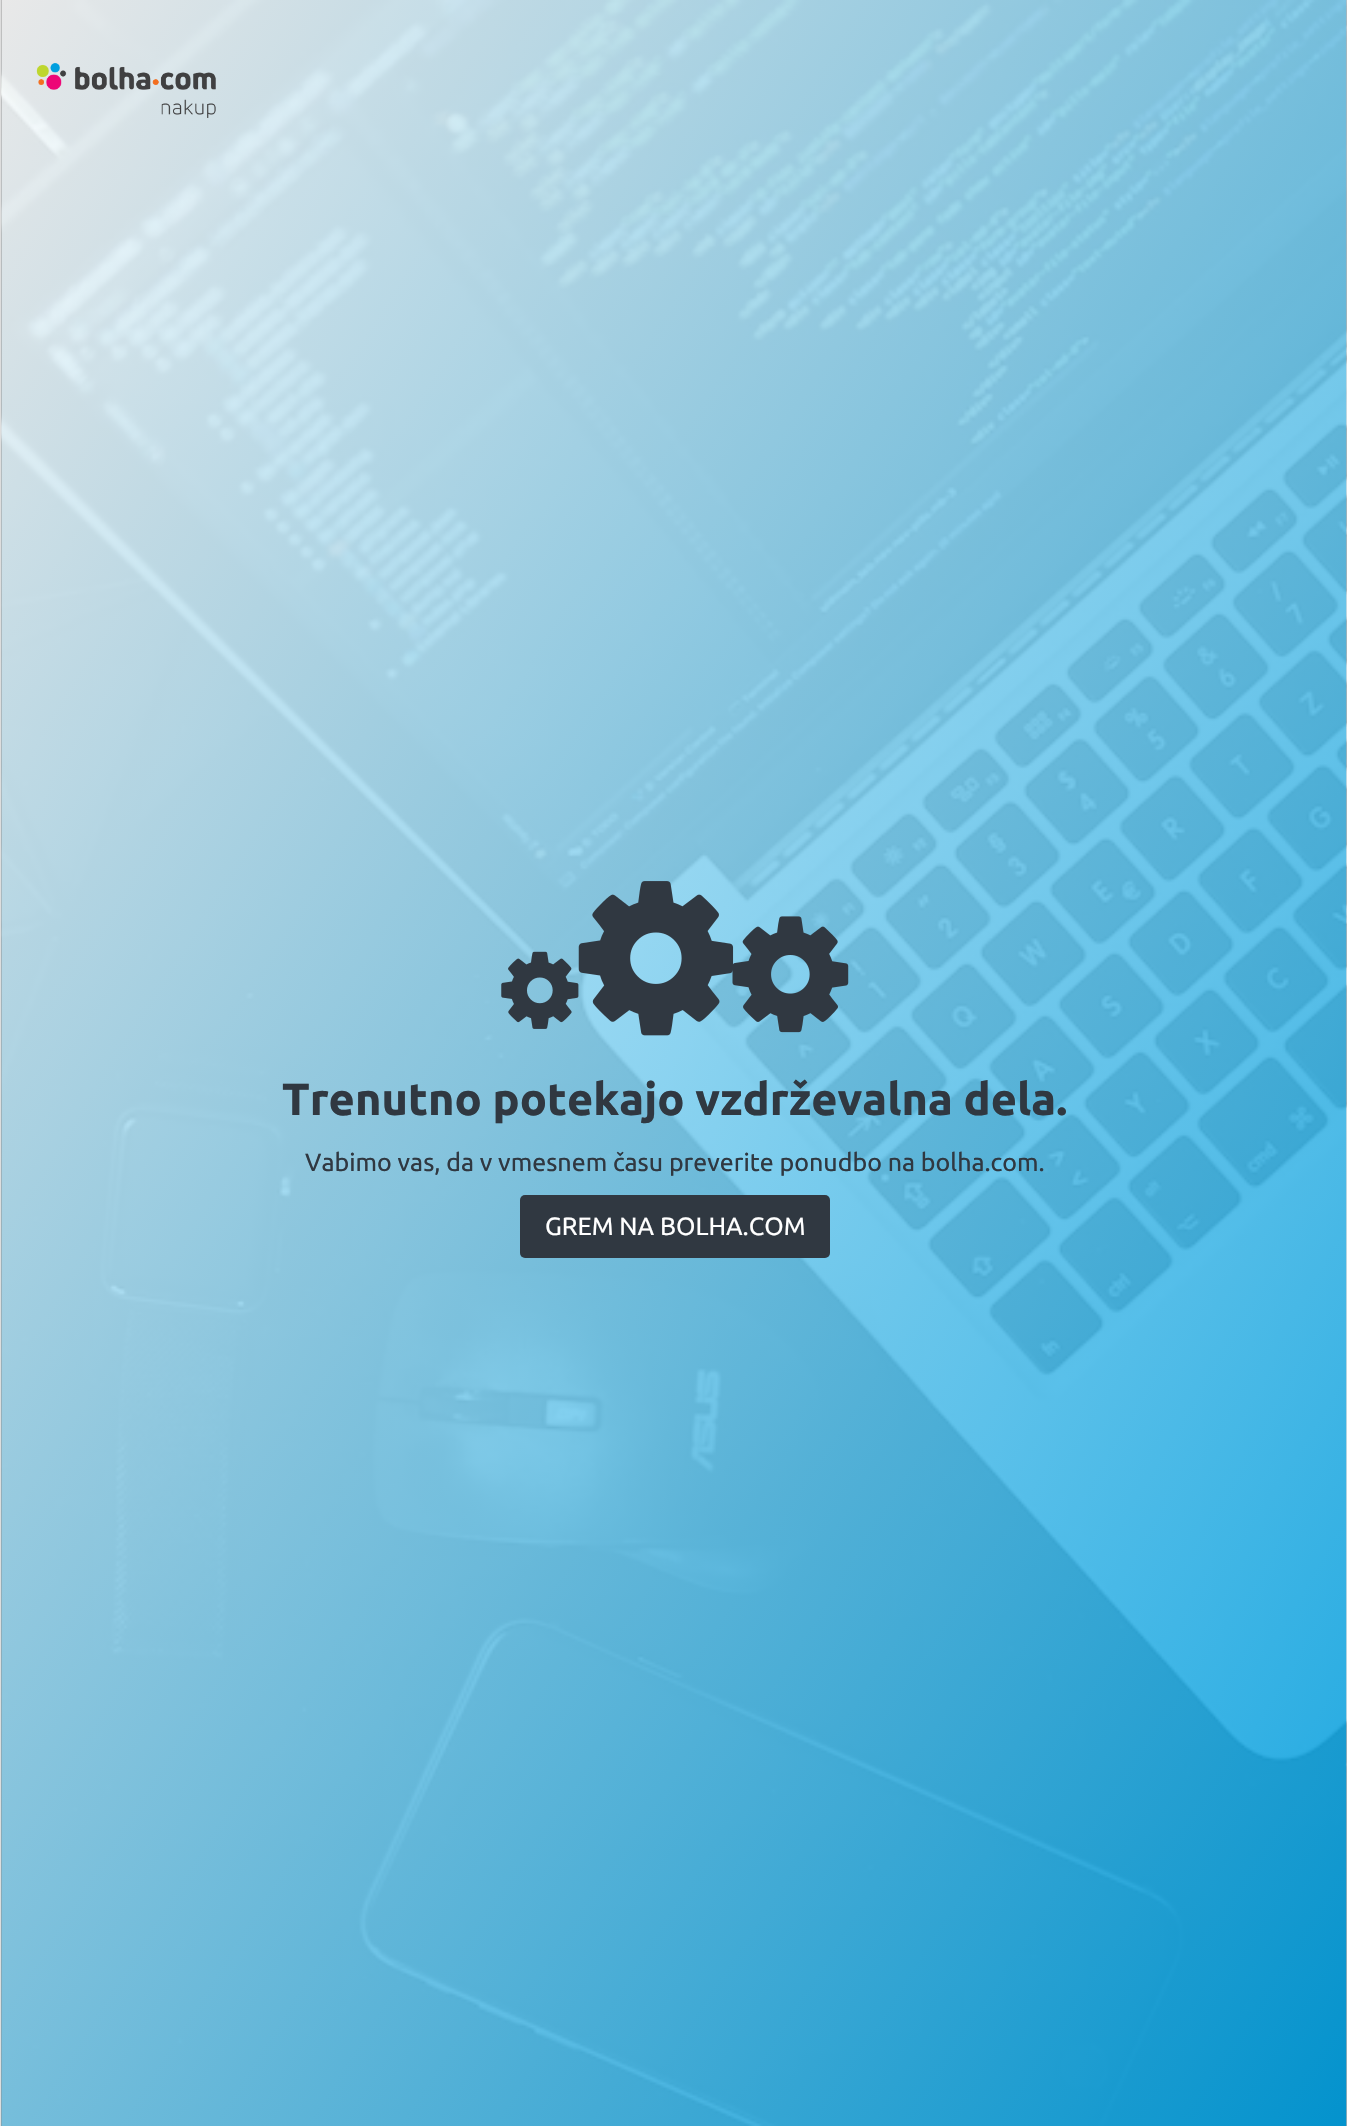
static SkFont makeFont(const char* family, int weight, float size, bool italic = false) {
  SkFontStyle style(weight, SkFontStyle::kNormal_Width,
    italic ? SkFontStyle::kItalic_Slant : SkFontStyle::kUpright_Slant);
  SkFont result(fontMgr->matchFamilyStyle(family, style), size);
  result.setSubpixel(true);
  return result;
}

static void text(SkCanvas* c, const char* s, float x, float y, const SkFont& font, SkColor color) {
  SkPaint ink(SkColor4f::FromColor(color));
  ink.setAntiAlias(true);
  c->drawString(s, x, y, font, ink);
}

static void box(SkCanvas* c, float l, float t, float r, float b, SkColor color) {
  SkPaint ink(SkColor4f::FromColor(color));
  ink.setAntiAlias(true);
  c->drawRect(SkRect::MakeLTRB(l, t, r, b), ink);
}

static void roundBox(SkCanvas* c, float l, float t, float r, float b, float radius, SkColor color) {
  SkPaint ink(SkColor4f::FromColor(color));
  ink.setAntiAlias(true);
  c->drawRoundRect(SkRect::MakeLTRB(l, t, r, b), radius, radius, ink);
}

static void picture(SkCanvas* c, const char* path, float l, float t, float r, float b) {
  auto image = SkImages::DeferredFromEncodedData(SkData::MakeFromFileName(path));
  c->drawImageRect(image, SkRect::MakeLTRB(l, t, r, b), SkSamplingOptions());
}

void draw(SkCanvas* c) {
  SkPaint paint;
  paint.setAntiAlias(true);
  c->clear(0xffffffff);
  box(c, 1346, 0, 1347, 2126, 0xffdddddd);
  box(c, 0, 0, 1, 2126, 0xffdddddd);
  picture(c, "img_01.png", 1, 0, 1347, 2126);
  picture(c, "img_02.png", 36, 63, 216, 118);
  picture(c, "img_03.png", 501, 951, 579, 1029);
  picture(c, "img_04.png", 578, 881, 734, 1036);
  picture(c, "img_05.png", 732, 916, 849, 1033);
  SkFont face1 = makeFont("Ubuntu", 700, 45);
  text(c, "Trenutno potekajo vzdrževalna dela.", 282, 1115, face1, 0xff303841);
  SkFont face2 = makeFont("Ubuntu", 400, 25);
  text(c, "Vabimo vas, da v vmesnem času preverite ponudbo na bolha.com.", 305, 1171, face2, 0xff303841);
  roundBox(c, 520, 1195, 830, 1258, 5, 0xff303841);
  text(c, "GREM NA BOLHA.COM", 545, 1235, face2, 0xffffffff);
}
